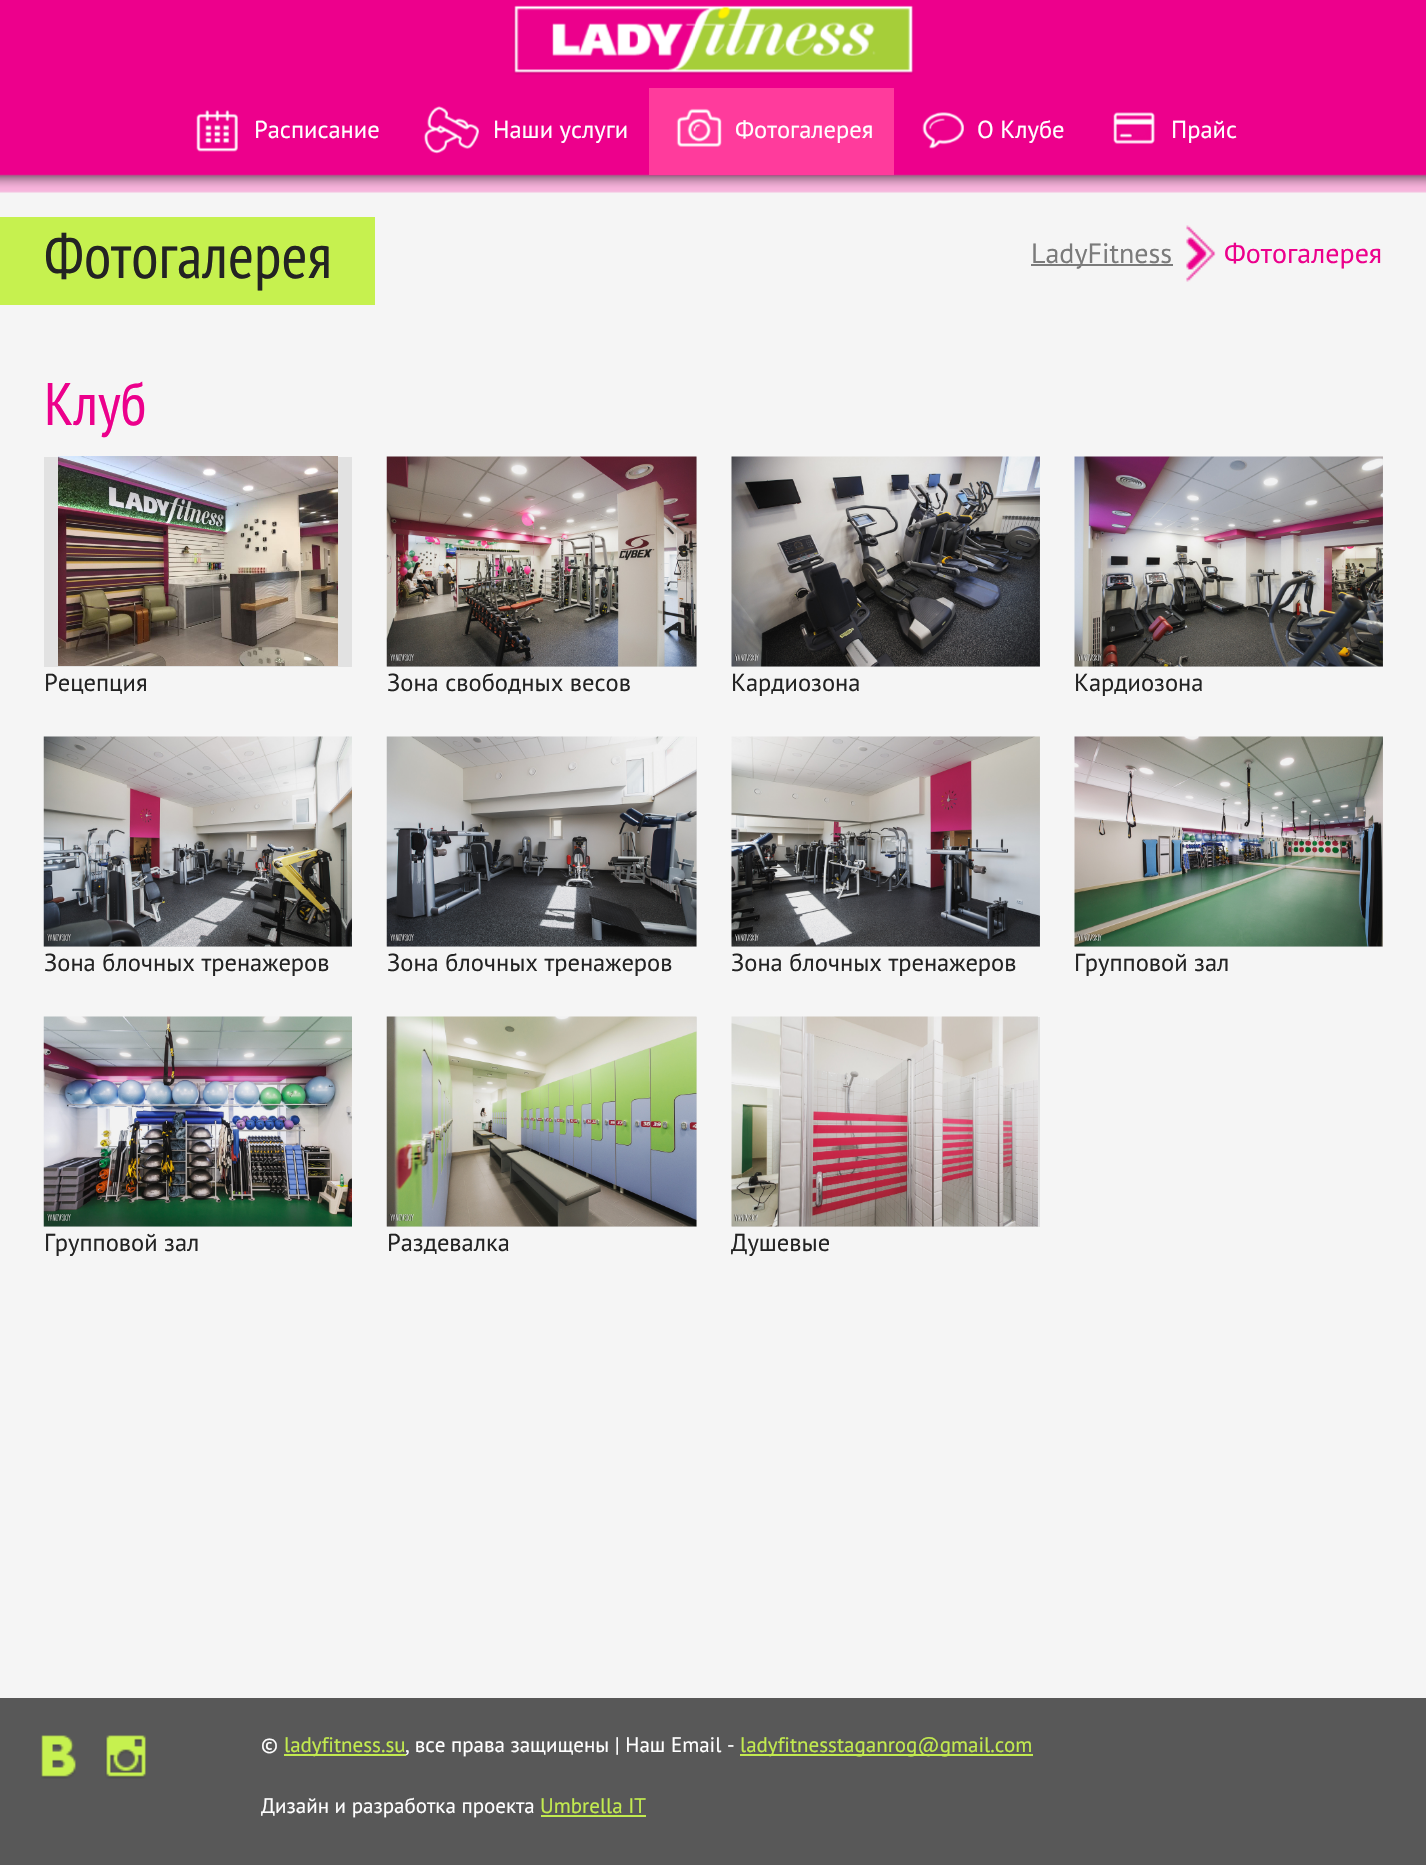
static SkFont makeFont(const char* family, int weight, float size, bool italic = false) {
  SkFontStyle style(weight, SkFontStyle::kNormal_Width,
    italic ? SkFontStyle::kItalic_Slant : SkFontStyle::kUpright_Slant);
  SkFont result(fontMgr->matchFamilyStyle(family, style), size);
  result.setSubpixel(true);
  return result;
}

static void text(SkCanvas* c, const char* s, float x, float y, const SkFont& font, SkColor color) {
  SkPaint ink(SkColor4f::FromColor(color));
  ink.setAntiAlias(true);
  c->drawString(s, x, y, font, ink);
}

static void box(SkCanvas* c, float l, float t, float r, float b, SkColor color) {
  SkPaint ink(SkColor4f::FromColor(color));
  ink.setAntiAlias(true);
  c->drawRect(SkRect::MakeLTRB(l, t, r, b), ink);
}

static void picture(SkCanvas* c, const char* path, float l, float t, float r, float b) {
  auto image = SkImages::DeferredFromEncodedData(SkData::MakeFromFileName(path));
  c->drawImageRect(image, SkRect::MakeLTRB(l, t, r, b), SkSamplingOptions());
}

void draw(SkCanvas* c) {
  SkPaint paint;
  paint.setAntiAlias(true);
  c->clear(0xfff5f5f5);
  picture(c, "img_01.png", 0, 0, 1426, 193);
  picture(c, "img_02.png", 513, 5, 914, 75);
  picture(c, "img_03.png", 196, 110, 238, 152);
  SkFont face1 = makeFont("PT Sans", 400, 24.5f);
  text(c, "Расписание", 254, 138, face1, 0xffffffff);
  picture(c, "img_04.png", 423, 106, 479, 154);
  text(c, "Наши услуги", 493, 138, face1, 0xffffffff);
  box(c, 649, 88, 894, 175, 0xffff3b9c);
  picture(c, "img_05.png", 676, 108, 722, 147);
  text(c, "Фотогалерея", 735, 138, face1, 0xffffffff);
  picture(c, "img_06.png", 922, 112, 964, 149);
  text(c, "O Клубе", 977, 138, face1, 0xffffffff);
  picture(c, "img_07.png", 1113, 112, 1155, 144);
  text(c, "Прайс", 1171, 138, face1, 0xffffffff);
  box(c, 0, 217, 375, 305, 0xffc6f14f);
  SkFont face2 = makeFont("PT Sans Narrow", 400, 63);
  text(c, "Фотогалерея", 44, 278, face2, 0xff232323);
  picture(c, "img_08.png", 1186, 225, 1216, 282);
  box(c, 1031, 264, 1173, 266, 0xff7b7b7b);
  SkFont face3 = makeFont("PT Sans", 400, 28);
  text(c, "LadyFitness", 1031, 263, face3, 0xff7b7b7b);
  text(c, "Фотогалерея", 1224, 263, face3, 0xffec008c);
  SkFont face4 = makeFont("PT Sans Narrow", 400, 60);
  text(c, "Клуб", 44, 425, face4, 0xffec008c);
  box(c, 44, 457, 352, 667, 0xffe2e2e2);
  picture(c, "img_09.png", 58, 456, 338, 666);
  text(c, "Рецепция", 44, 691, face1, 0xff232323);
  box(c, 387, 457, 697, 667, 0xffe2e2e2);
  picture(c, "img_10.png", 386, 456, 697, 667);
  text(c, "Зона свободных весов", 387, 691, face1, 0xff232323);
  box(c, 732, 457, 1040, 667, 0xffe2e2e2);
  picture(c, "img_11.png", 731, 456, 1040, 667);
  text(c, "Кардиозона", 731, 691, face1, 0xff232323);
  box(c, 1075, 457, 1383, 667, 0xffe2e2e2);
  picture(c, "img_12.png", 1074, 456, 1383, 667);
  text(c, "Кардиозона", 1074, 691, face1, 0xff232323);
  box(c, 44, 946, 352, 947, 0xffe2e2e2);
  picture(c, "img_13.png", 43, 736, 352, 947);
  text(c, "Зона блочных тренажеров", 44, 971, face1, 0xff232323);
  box(c, 387, 737, 697, 947, 0xffe2e2e2);
  picture(c, "img_14.png", 386, 736, 697, 947);
  text(c, "Зона блочных тренажеров", 387, 971, face1, 0xff232323);
  box(c, 732, 737, 1040, 947, 0xffe2e2e2);
  picture(c, "img_15.png", 731, 736, 1040, 947);
  text(c, "Зона блочных тренажеров", 731, 971, face1, 0xff232323);
  box(c, 1075, 737, 1383, 947, 0xffe2e2e2);
  picture(c, "img_16.png", 1074, 736, 1383, 947);
  text(c, "Групповой зал", 1074, 971, face1, 0xff232323);
  box(c, 44, 1226, 352, 1227, 0xffe2e2e2);
  picture(c, "img_17.png", 43, 1016, 352, 1227);
  text(c, "Групповой зал", 44, 1251, face1, 0xff232323);
  box(c, 387, 1017, 697, 1227, 0xffe2e2e2);
  picture(c, "img_18.png", 386, 1016, 697, 1227);
  text(c, "Раздевалка", 387, 1251, face1, 0xff232323);
  box(c, 732, 1017, 1040, 1227, 0xffe2e2e2);
  picture(c, "img_19.png", 731, 1016, 1038, 1227);
  text(c, "Душевые", 731, 1251, face1, 0xff232323);
  box(c, 0, 1698, 1426, 1865, 0xff585858);
  picture(c, "img_20.png", 41, 1735, 76, 1779);
  picture(c, "img_21.png", 105, 1735, 146, 1779);
  SkFont face5 = makeFont("PT Sans", 400, 21);
  text(c, "©", 261, 1752, face5, 0xffffffff);
  box(c, 284, 1754, 406, 1756, 0xffc2ea4f);
  text(c, "ladyfitness.su", 284, 1752, face5, 0xffc2ea4f);
  text(c, ", все права защищены | Наш Email -", 405, 1752, face5, 0xffffffff);
  box(c, 740, 1754, 1033, 1756, 0xffc2ea4f);
  text(c, "ladyfitnesstaganrog@gmail.com", 740, 1752, face5, 0xffc2ea4f);
  text(c, "Дизайн и разработка проекта", 261, 1813, face5, 0xffffffff);
  text(c, "Umbrella IT", 540, 1813, face5, 0xffc2ea4f);
  box(c, 541, 1815, 646, 1817, 0xffc2ea4f);
}
